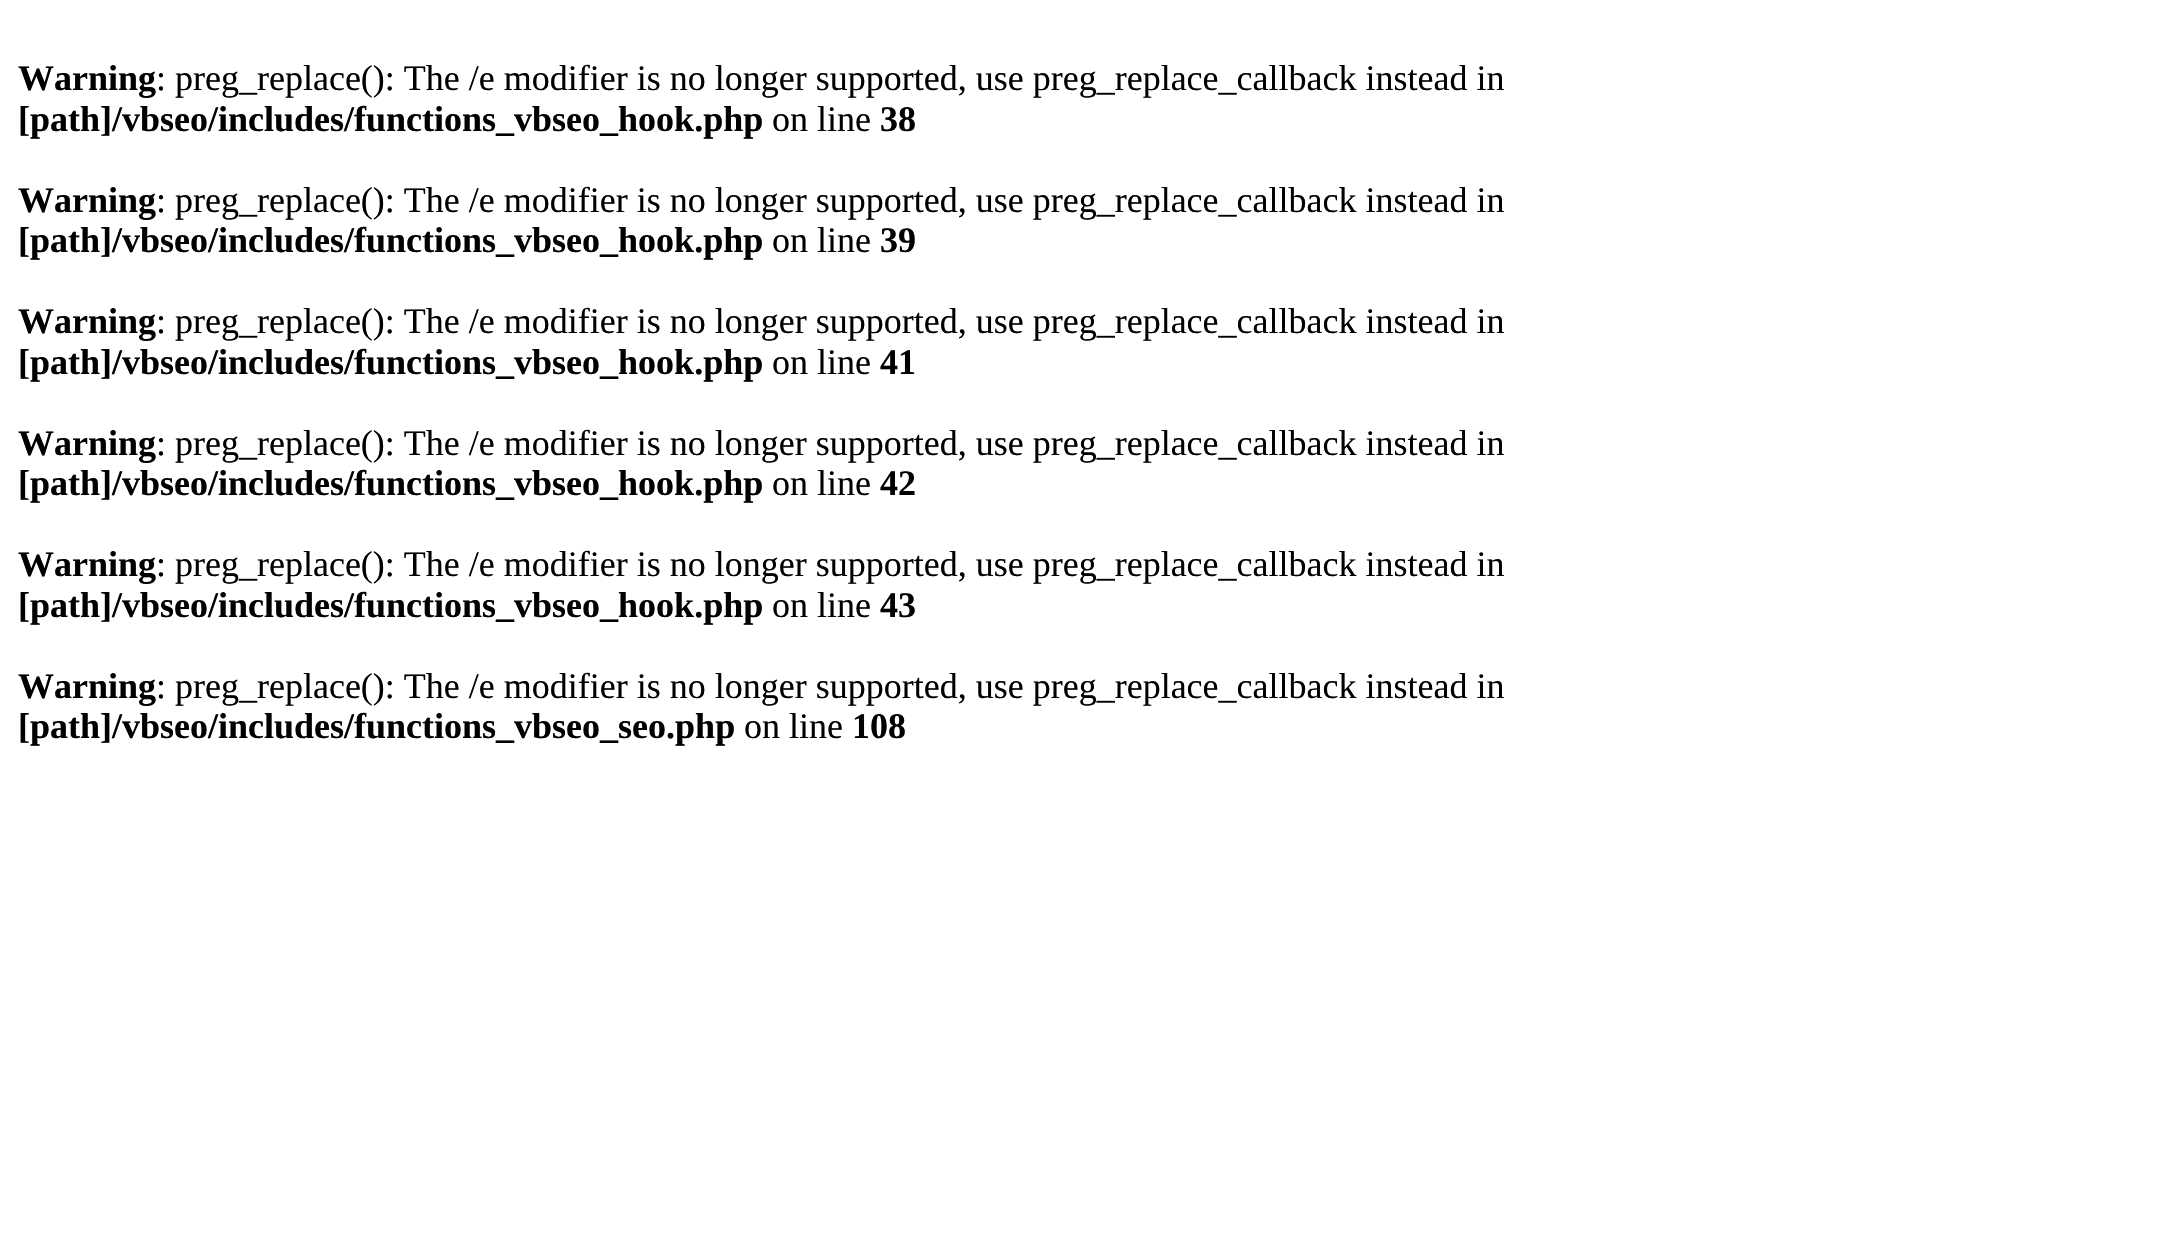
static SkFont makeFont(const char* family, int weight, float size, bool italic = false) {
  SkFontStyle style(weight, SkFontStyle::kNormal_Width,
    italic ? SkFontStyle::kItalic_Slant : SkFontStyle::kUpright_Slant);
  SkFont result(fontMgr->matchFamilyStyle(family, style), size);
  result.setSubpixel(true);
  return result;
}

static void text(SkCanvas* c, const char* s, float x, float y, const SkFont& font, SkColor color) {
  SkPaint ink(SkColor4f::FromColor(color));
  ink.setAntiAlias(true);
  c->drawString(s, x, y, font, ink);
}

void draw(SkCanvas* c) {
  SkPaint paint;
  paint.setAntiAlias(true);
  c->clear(0xffffffff);
  SkFont face1 = makeFont("Liberation Serif", 700, 36);
  text(c, "Warning", 18, 90, face1, 0xff000000);
  SkFont face2 = makeFont("Liberation Serif", 400, 36);
  text(c, ": preg_replace(): The /e modifier is no longer supported, use preg_replace_callback instead in", 156, 90, face2, 0xff000000);
  text(c, "[path]/vbseo/includes/functions_vbseo_hook.php", 18, 131, face1, 0xff000000);
  text(c, "on line", 772, 131, face2, 0xff000000);
  text(c, "38", 880, 131, face1, 0xff000000);
  text(c, "Warning", 18, 212, face1, 0xff000000);
  text(c, ": preg_replace(): The /e modifier is no longer supported, use preg_replace_callback instead in", 156, 212, face2, 0xff000000);
  text(c, "[path]/vbseo/includes/functions_vbseo_hook.php", 18, 252, face1, 0xff000000);
  text(c, "on line", 772, 252, face2, 0xff000000);
  text(c, "39", 880, 252, face1, 0xff000000);
  text(c, "Warning", 18, 333, face1, 0xff000000);
  text(c, ": preg_replace(): The /e modifier is no longer supported, use preg_replace_callback instead in", 156, 333, face2, 0xff000000);
  text(c, "[path]/vbseo/includes/functions_vbseo_hook.php", 18, 374, face1, 0xff000000);
  text(c, "on line", 772, 374, face2, 0xff000000);
  text(c, "41", 880, 374, face1, 0xff000000);
  text(c, "Warning", 18, 455, face1, 0xff000000);
  text(c, ": preg_replace(): The /e modifier is no longer supported, use preg_replace_callback instead in", 156, 455, face2, 0xff000000);
  text(c, "[path]/vbseo/includes/functions_vbseo_hook.php", 18, 495, face1, 0xff000000);
  text(c, "on line", 772, 495, face2, 0xff000000);
  text(c, "42", 880, 495, face1, 0xff000000);
  text(c, "Warning", 18, 576, face1, 0xff000000);
  text(c, ": preg_replace(): The /e modifier is no longer supported, use preg_replace_callback instead in", 156, 576, face2, 0xff000000);
  text(c, "[path]/vbseo/includes/functions_vbseo_hook.php", 18, 617, face1, 0xff000000);
  text(c, "on line", 772, 617, face2, 0xff000000);
  text(c, "43", 880, 617, face1, 0xff000000);
  text(c, "Warning", 18, 698, face1, 0xff000000);
  text(c, ": preg_replace(): The /e modifier is no longer supported, use preg_replace_callback instead in", 156, 698, face2, 0xff000000);
  text(c, "[path]/vbseo/includes/functions_vbseo_seo.php", 18, 738, face1, 0xff000000);
  text(c, "on line", 744, 738, face2, 0xff000000);
  text(c, "108", 852, 738, face1, 0xff000000);
}
